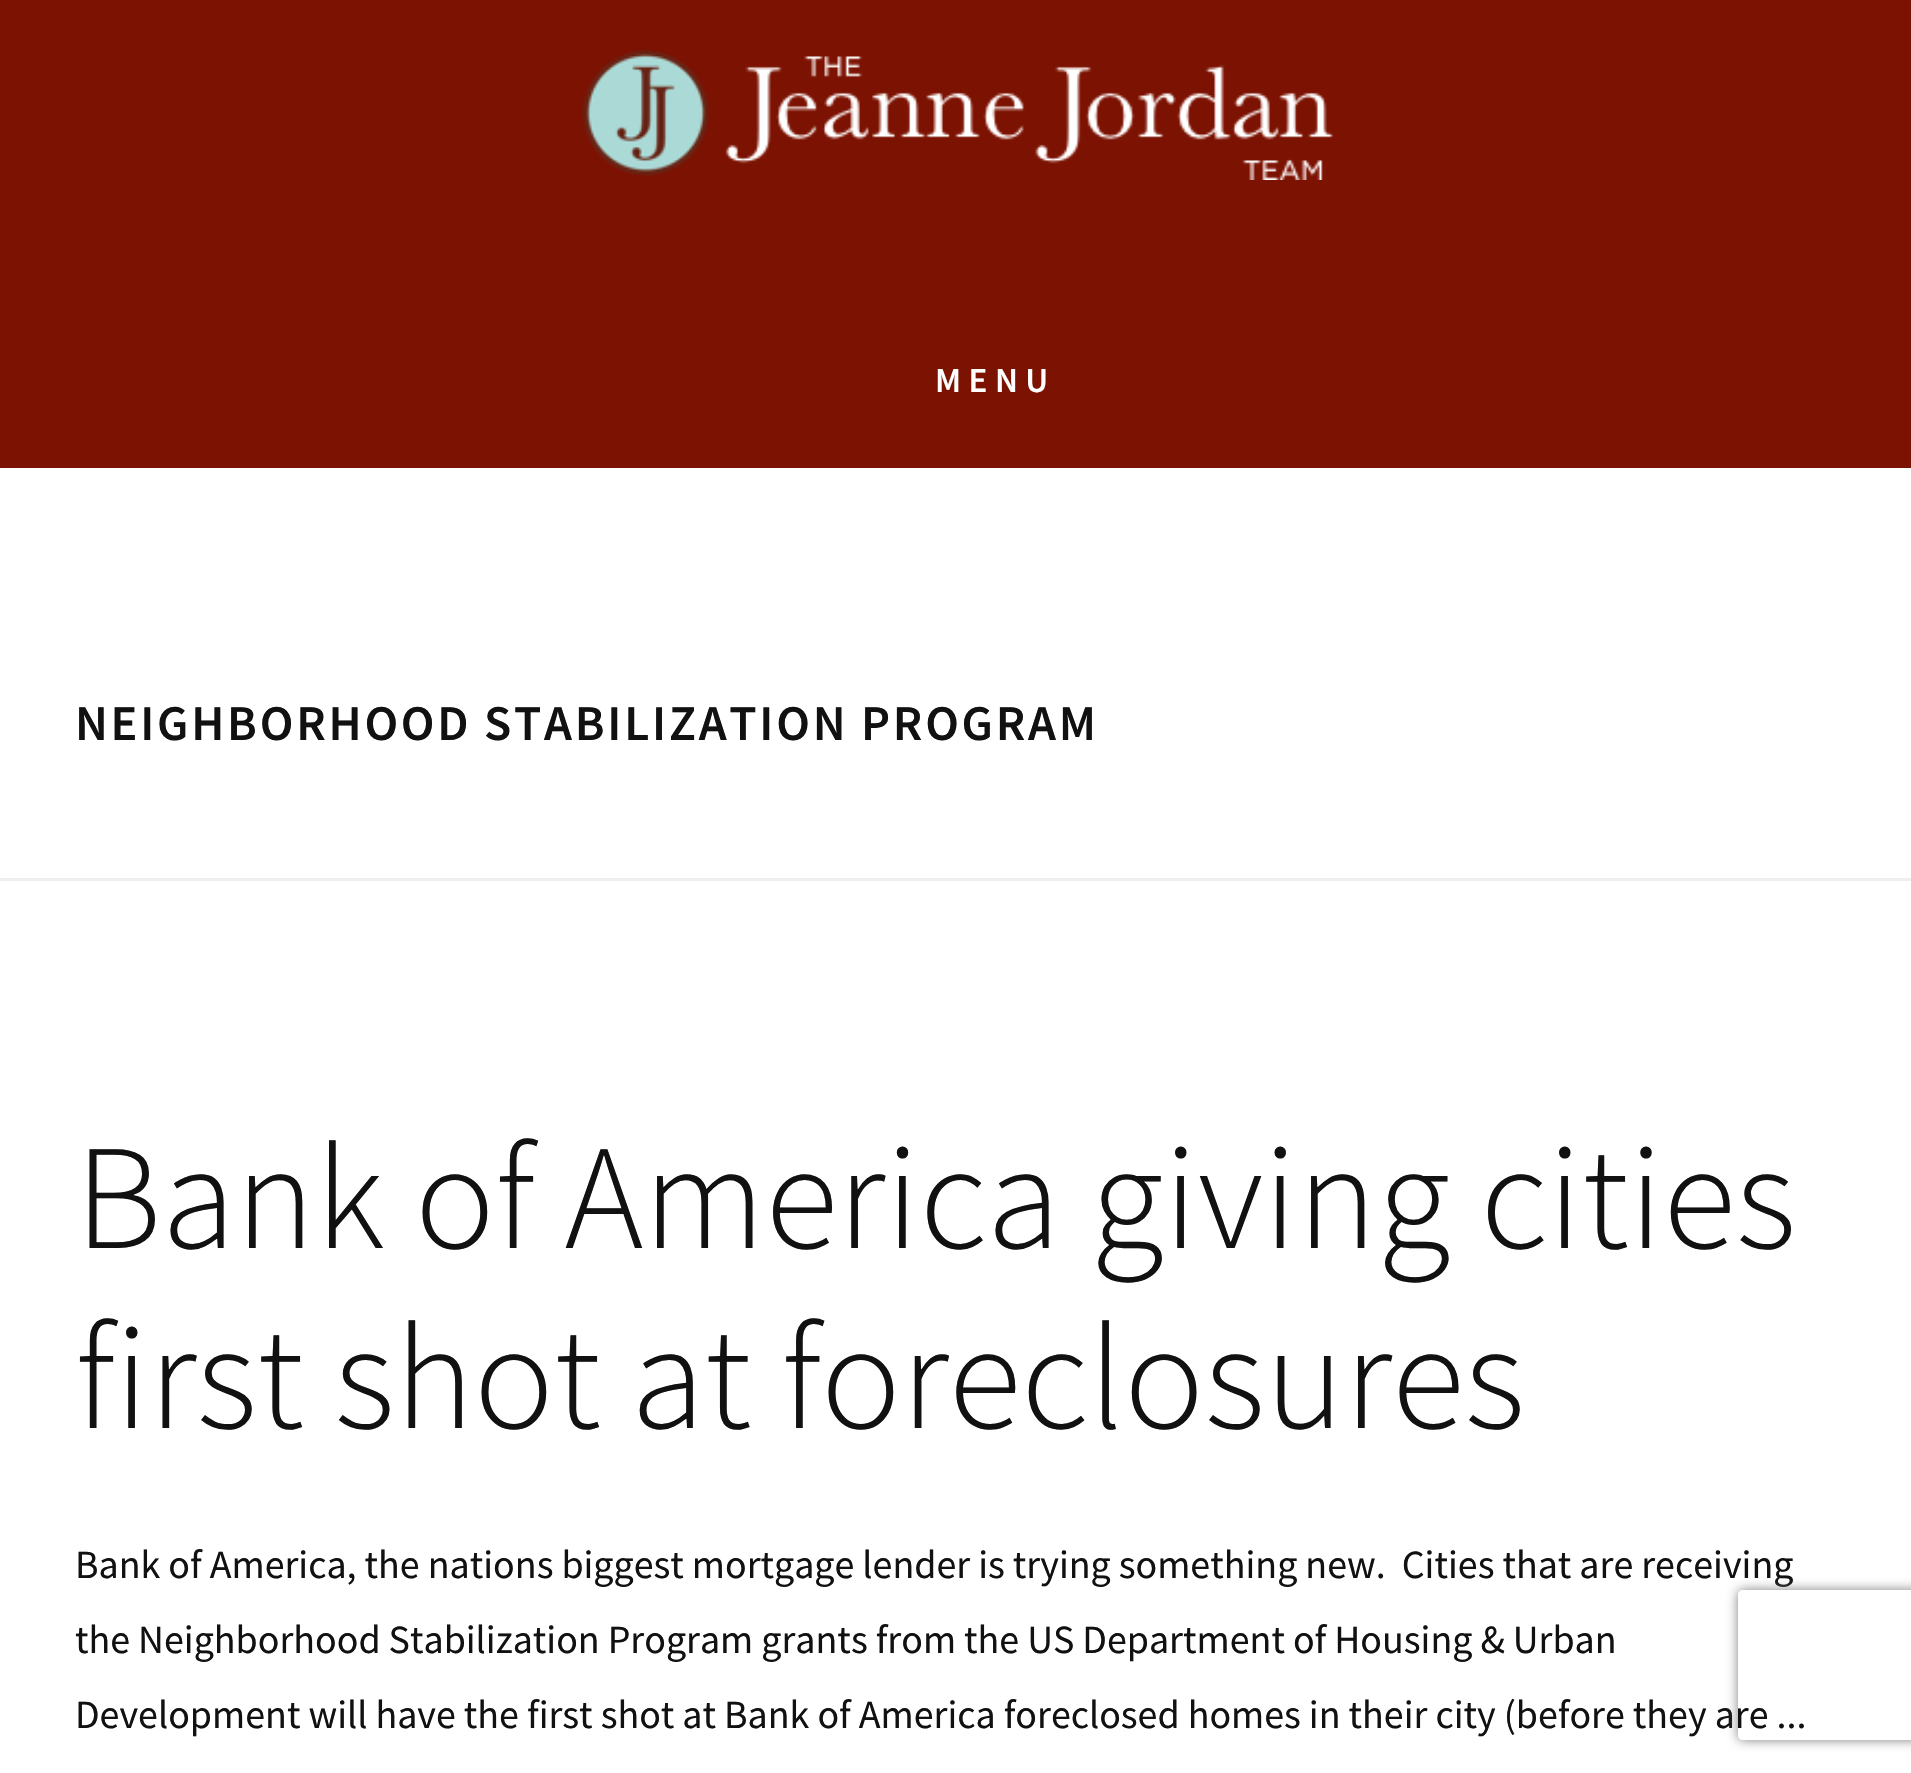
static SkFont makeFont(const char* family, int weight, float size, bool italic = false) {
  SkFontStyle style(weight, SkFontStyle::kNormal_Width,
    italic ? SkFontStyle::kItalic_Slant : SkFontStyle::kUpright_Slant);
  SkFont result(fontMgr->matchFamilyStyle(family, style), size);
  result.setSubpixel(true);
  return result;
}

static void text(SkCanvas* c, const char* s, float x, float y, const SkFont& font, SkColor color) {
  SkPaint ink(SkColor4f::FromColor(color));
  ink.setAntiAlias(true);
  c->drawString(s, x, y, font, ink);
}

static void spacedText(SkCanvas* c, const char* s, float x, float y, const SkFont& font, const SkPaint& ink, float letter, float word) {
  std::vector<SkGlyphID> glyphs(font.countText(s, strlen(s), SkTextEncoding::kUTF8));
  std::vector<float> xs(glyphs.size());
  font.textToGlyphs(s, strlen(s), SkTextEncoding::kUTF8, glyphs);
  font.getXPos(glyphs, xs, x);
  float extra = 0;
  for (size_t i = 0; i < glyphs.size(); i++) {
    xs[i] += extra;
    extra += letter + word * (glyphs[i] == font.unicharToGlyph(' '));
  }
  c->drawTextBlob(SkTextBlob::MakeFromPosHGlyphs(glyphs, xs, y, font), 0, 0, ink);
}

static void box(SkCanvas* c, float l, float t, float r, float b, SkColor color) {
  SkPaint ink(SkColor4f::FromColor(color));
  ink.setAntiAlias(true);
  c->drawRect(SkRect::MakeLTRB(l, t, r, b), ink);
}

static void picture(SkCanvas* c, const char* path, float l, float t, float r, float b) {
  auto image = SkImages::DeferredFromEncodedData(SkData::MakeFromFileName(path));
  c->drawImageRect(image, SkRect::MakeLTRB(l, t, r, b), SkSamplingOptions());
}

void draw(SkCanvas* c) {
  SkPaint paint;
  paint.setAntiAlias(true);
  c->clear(0xffffffff);
  box(c, 0, 0, 1911, 468, 0xff7c1202);
  picture(c, "img_01.png", 582, 50, 1333, 180);
  SkFont face1 = makeFont("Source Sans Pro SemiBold", 600, 35);
  paint.setColor(0xffffffff);
  spacedText(c, "MENU", 935, 392, face1, paint, 7.5f, 0);
  box(c, 0, 878, 1911, 881, 0xffeeeeee);
  SkFont face2 = makeFont("Source Sans Pro SemiBold", 600, 50);
  paint.setColor(0xff111111);
  spacedText(c, "NEIGHBORHOOD STABILIZATION PROGRAM", 75, 740, face2, paint, 2.75f, 0);
  SkFont face3 = makeFont("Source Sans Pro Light", 300, 150);
  text(c, "Bank of America giving cities", 75, 1248, face3, 0xff111111);
  text(c, "first shot at foreclosures", 75, 1428, face3, 0xff111111);
  SkFont face4 = makeFont("Source Sans Pro", 400, 40);
  text(c, "Bank of America, the nations biggest mortgage lender is trying something new.  Cities that are receiving", 75, 1578, face4, 0xff111111);
  text(c, "the Neighborhood Stabilization Program grants from the US Department of Housing & Urban", 75, 1653, face4, 0xff111111);
  text(c, "Development will have the first shot at Bank of America foreclosed homes in their city (before they are ...", 75, 1728, face4, 0xff111111);
  c->save();
  c->clipPath(SkPathBuilder(SkPathFillType::kEvenOdd).moveTo(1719, 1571).lineTo(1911, 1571).lineTo(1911, 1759).lineTo(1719, 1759).close().moveTo(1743, 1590).lineTo(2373, 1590).cubicTo(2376, 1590, 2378, 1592, 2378, 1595).lineTo(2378, 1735).cubicTo(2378, 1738, 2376, 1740, 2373, 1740).lineTo(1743, 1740).cubicTo(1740, 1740, 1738, 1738, 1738, 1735).lineTo(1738, 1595).cubicTo(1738, 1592, 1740, 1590, 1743, 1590).close().detach(), true);
  paint.setColor(0xff808080);
  paint.setMaskFilter(SkMaskFilter::MakeBlur(kNormal_SkBlurStyle, 6));
  c->drawRoundRect(SkRect::MakeLTRB(1738, 1590, 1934, 1740), 5, 5, paint);
  paint.setMaskFilter(nullptr);
  c->restore();
}
